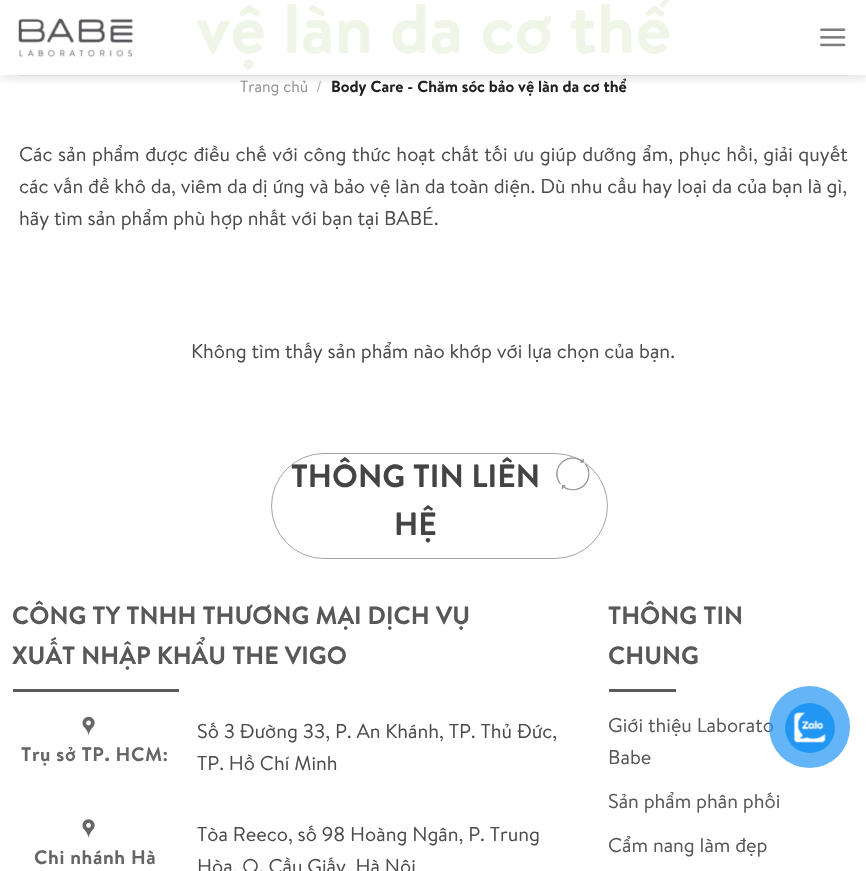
static SkFont makeFont(const char* family, int weight, float size, bool italic = false) {
  SkFontStyle style(weight, SkFontStyle::kNormal_Width,
    italic ? SkFontStyle::kItalic_Slant : SkFontStyle::kUpright_Slant);
  SkFont result(fontMgr->matchFamilyStyle(family, style), size);
  result.setSubpixel(true);
  return result;
}

static void text(SkCanvas* c, const char* s, float x, float y, const SkFont& font, SkColor color) {
  SkPaint ink(SkColor4f::FromColor(color));
  ink.setAntiAlias(true);
  c->drawString(s, x, y, font, ink);
}

static void spacedText(SkCanvas* c, const char* s, float x, float y, const SkFont& font, const SkPaint& ink, float letter, float word) {
  std::vector<SkGlyphID> glyphs(font.countText(s, strlen(s), SkTextEncoding::kUTF8));
  std::vector<float> xs(glyphs.size());
  font.textToGlyphs(s, strlen(s), SkTextEncoding::kUTF8, glyphs);
  font.getXPos(glyphs, xs, x);
  float extra = 0;
  for (size_t i = 0; i < glyphs.size(); i++) {
    xs[i] += extra;
    extra += letter + word * (glyphs[i] == font.unicharToGlyph(' '));
  }
  c->drawTextBlob(SkTextBlob::MakeFromPosHGlyphs(glyphs, xs, y, font), 0, 0, ink);
}

static void box(SkCanvas* c, float l, float t, float r, float b, SkColor color) {
  SkPaint ink(SkColor4f::FromColor(color));
  ink.setAntiAlias(true);
  c->drawRect(SkRect::MakeLTRB(l, t, r, b), ink);
}

static void roundBox(SkCanvas* c, float l, float t, float r, float b, float radius, SkColor color) {
  SkPaint ink(SkColor4f::FromColor(color));
  ink.setAntiAlias(true);
  c->drawRoundRect(SkRect::MakeLTRB(l, t, r, b), radius, radius, ink);
}

static void picture(SkCanvas* c, const char* path, float l, float t, float r, float b) {
  auto image = SkImages::DeferredFromEncodedData(SkData::MakeFromFileName(path));
  c->drawImageRect(image, SkRect::MakeLTRB(l, t, r, b), SkSamplingOptions());
}

void draw(SkCanvas* c) {
  SkPaint paint;
  paint.setAntiAlias(true);
  c->clear(0xffffffff);
  c->save();
  c->clipRect(SkRect::MakeLTRB(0, 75, 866, 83));
  paint.setColor(0x26000000);
  paint.setMaskFilter(SkMaskFilter::MakeBlur(kNormal_SkBlurStyle, 6));
  c->drawRect(SkRect::MakeLTRB(1, 1, 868, 76), paint);
  paint.setMaskFilter(nullptr);
  c->restore();
  picture(c, "img_01.png", 18, 18, 133, 57);
  picture(c, "img_02.png", 820, 28, 846, 47);
  box(c, 19, 75, 848, 76, 0xffdbdbdb);
  SkFont face1 = makeFont("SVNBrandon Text", 700, 70);
  text(c, "vệ làn da cơ thể", 196, 53, face1, 0xfff0f6e7);
  SkFont face2 = makeFont("SVNBrandon Text", 400, 16);
  text(c, "Trang chủ", 240, 92, face2, 0xff949494);
  text(c, "/", 316, 92, face2, 0xffb2b2b2);
  SkFont face3 = makeFont("SVNBrandon Text", 700, 16);
  text(c, "Body Care - Chăm sóc bảo vệ làn da cơ thể", 331, 92, face3, 0xff222222);
  SkFont face4 = makeFont("SVNBrandon Text", 400, 20);
  paint.setColor(0xff4c4c4c);
  spacedText(c, "Các sản phẩm được điều chế với công thức hoạt chất tối ưu giúp dưỡng ẩm, phục hồi, giải quyết", 19, 161, face4, paint, 0, 0.75f);
  text(c, "các vấn đề khô da, viêm da dị ứng và bảo vệ làn da toàn diện. Dù nhu cầu hay loại da của bạn là gì,", 19, 193, face4, 0xff4c4c4c);
  text(c, "hãy tìm sản phẩm phù hợp nhất với bạn tại BABÉ.", 19, 225, face4, 0xff4c4c4c);
  text(c, "Không tìm thấy sản phẩm nào khớp với lựa chọn của bạn.", 191, 358, face4, 0xff4c4c4c);
  paint.setStyle(SkPaint::kStroke_Style);
  paint.setStrokeWidth(1);
  paint.setColor(0xffa4a4a4);
  c->drawRoundRect(SkRect::MakeLTRB(271.5f, 453.5f, 607.5f, 558.5f), 52.5f, 52.5f, paint);
  SkFont face5 = makeFont("SVNBrandon Text", 700, 32);
  text(c, "THÔNG TIN LIÊN", 291, 487, face5, 0xff444444);
  text(c, "HỆ", 394, 535, face5, 0xff444444);
  picture(c, "img_03.png", 556, 457, 590, 491);
  SkFont face6 = makeFont("SVNBrandon Text", 700, 25);
  text(c, "CÔNG TY TNHH THƯƠNG MẠI DỊCH VỤ", 12, 624, face6, 0xff585858);
  text(c, "XUẤT NHẬP KHẨU THE VIGO", 12, 664, face6, 0xff585858);
  box(c, 13, 689, 179, 692, 0xff5b5b5b);
  picture(c, "img_04.png", 82, 716, 95, 736);
  SkFont face7 = makeFont("SVNBrandon Text", 700, 19.5f);
  paint.setStyle(SkPaint::kFill_Style);
  paint.setColor(0xff666666);
  spacedText(c, "Trụ sở TP. HCM:", 21, 761, face7, paint, 0.6f, 0);
  text(c, "Số 3 Đường 33, P. An Khánh, TP. Thủ Đức,", 197, 738, face4, 0xff4c4c4c);
  text(c, "TP. Hồ Chí Minh", 197, 770, face4, 0xff4c4c4c);
  picture(c, "img_05.png", 82, 819, 95, 839);
  spacedText(c, "Chi nhánh Hà", 34, 864, face7, paint, 0.6f, 0);
  text(c, "Tòa Reeco, số 98 Hoàng Ngân, P. Trung", 197, 841, face4, 0xff4c4c4c);
  text(c, "Hòa, Q. Cầu Giấy, Hà Nội", 197, 873, face4, 0xff4c4c4c);
  text(c, "THÔNG TIN", 608, 624, face6, 0xff585858);
  text(c, "CHUNG", 608, 664, face6, 0xff585858);
  box(c, 609, 689, 676, 692, 0xff5b5b5b);
  text(c, "Giới thiệu Laborato", 608, 732, face4, 0xff585858);
  text(c, "Babe", 608, 764, face4, 0xff585858);
  text(c, "Sản phẩm phân phối", 608, 808, face4, 0xff585858);
  text(c, "Cẩm nang làm đẹp", 608, 852, face4, 0xff585858);
  roundBox(c, 769, 686, 850, 768, 40.5f, 0xb32196f3);
  paint.setColor(0xff2196f3);
  c->drawCircle(810, 728, 25, paint);
  picture(c, "img_06.png", 793, 712, 826, 743);
}
